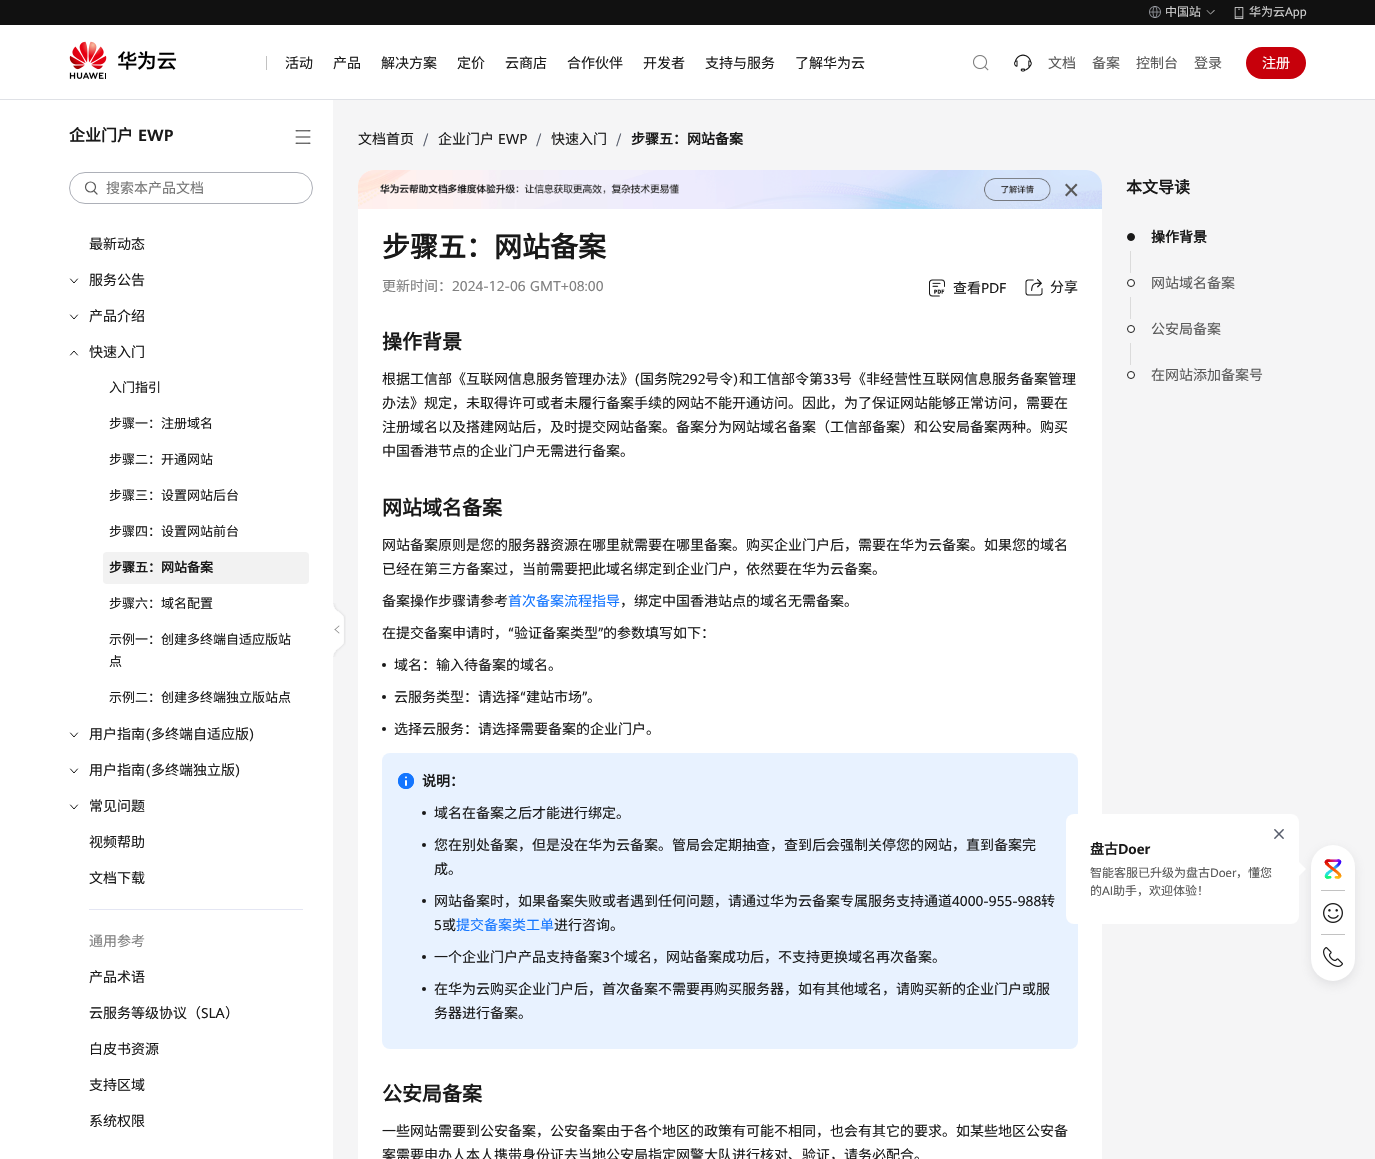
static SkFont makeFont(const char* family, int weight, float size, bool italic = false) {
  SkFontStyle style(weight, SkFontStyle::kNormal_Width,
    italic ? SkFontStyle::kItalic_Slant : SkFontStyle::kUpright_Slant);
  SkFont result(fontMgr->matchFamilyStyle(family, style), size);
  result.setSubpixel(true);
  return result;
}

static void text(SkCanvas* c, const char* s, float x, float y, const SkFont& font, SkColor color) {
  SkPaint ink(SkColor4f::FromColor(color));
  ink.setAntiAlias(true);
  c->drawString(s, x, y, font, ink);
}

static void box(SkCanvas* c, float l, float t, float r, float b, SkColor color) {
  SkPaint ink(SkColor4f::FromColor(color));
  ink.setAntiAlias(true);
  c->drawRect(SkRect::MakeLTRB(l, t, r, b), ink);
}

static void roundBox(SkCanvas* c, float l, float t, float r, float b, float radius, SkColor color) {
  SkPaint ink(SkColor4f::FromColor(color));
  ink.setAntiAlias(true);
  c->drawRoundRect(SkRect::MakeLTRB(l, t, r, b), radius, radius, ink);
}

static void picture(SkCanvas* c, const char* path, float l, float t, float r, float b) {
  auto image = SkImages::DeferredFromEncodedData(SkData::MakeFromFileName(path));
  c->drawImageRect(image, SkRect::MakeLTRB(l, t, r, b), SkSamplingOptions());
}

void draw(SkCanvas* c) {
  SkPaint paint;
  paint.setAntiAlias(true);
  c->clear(0xfff5f5f6);
  box(c, 0, 0, 1375, 25, 0xff111111);
  picture(c, "img_01.png", 1149, 6, 1161, 18);
  SkFont face1 = makeFont("Noto Sans CJK SC", 400, 12);
  text(c, "中国站", 1165, 16, face1, 0xffcfcfcf);
  paint.setColor(0xffa9a9a9);
  c->drawPath(SkPathBuilder().moveTo(1215, 10.5f).lineTo(1210.5f, 14.5f).lineTo(1210.5f, 13.5f).lineTo(1214, 10).close().detach(), paint);
  paint.setColor(0xcccfcfcf);
  c->drawPath(SkPathBuilder().moveTo(1210.5f, 14.5f).lineTo(1206.5f, 10.5f).lineTo(1207, 10).lineTo(1210.5f, 13.5f).close().detach(), paint);
  picture(c, "img_02.png", 1234, 7, 1244, 19);
  text(c, "华为云", 1249, 16, face1, 0xffcfcfcf);
  SkFont face2 = makeFont("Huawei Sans", 400, 12);
  text(c, "App", 1285, 16, face2, 0xffcfcfcf);
  box(c, 0, 25, 1375, 99, 0xffffffff);
  box(c, 0, 99, 1375, 100, 0xffdfe1e6);
  picture(c, "img_03.png", 69, 41, 177, 79);
  box(c, 266, 56, 267, 70, 0xffc2c2c2);
  SkFont face3 = makeFont("Noto Sans CJK SC", 400, 14);
  text(c, "活动", 285, 68, face3, 0xff191919);
  text(c, "产品", 333, 68, face3, 0xff191919);
  text(c, "解决方案", 381, 68, face3, 0xff191919);
  text(c, "定价", 457, 68, face3, 0xff191919);
  text(c, "云商店", 505, 68, face3, 0xff191919);
  text(c, "合作伙伴", 567, 68, face3, 0xff191919);
  text(c, "开发者", 643, 68, face3, 0xff191919);
  text(c, "支持与服务", 705, 68, face3, 0xff191919);
  text(c, "了解华为云", 795, 68, face3, 0xff191919);
  picture(c, "img_04.png", 973, 55, 989, 71);
  picture(c, "img_05.png", 1014, 54, 1032, 72);
  text(c, "文档", 1048, 68, face3, 0xff595959);
  text(c, "备案", 1092, 68, face3, 0xff595959);
  text(c, "控制台", 1136, 68, face3, 0xff595959);
  text(c, "登录", 1194, 68, face3, 0xff595959);
  roundBox(c, 1246, 47, 1306, 79, 16, 0xffc7000b);
  text(c, "注册", 1262, 68, face3, 0xffffffff);
  box(c, 0, 100, 333, 1159, 0xffffffff);
  SkFont face4 = makeFont("Noto Sans CJK SC", 700, 16);
  text(c, "企业门户", 69, 141, face4, 0xff191919);
  SkFont face5 = makeFont("Huawei Sans", 700, 16);
  text(c, "EWP", 138, 141, face5, 0xff191919);
  picture(c, "img_06.png", 295, 130, 311, 144);
  paint.setStyle(SkPaint::kStroke_Style);
  paint.setStrokeWidth(1);
  paint.setColor(0xffadb0b8);
  c->drawRoundRect(SkRect::MakeLTRB(69.5f, 172.5f, 312.5f, 203.5f), 15.5f, 15.5f, paint);
  paint.setStrokeWidth(1.2f);
  paint.setColor(0xff595959);
  c->drawCircle(90.5f, 187, 5, paint);
  paint.setStrokeCap(SkPaint::kRound_Cap);
  paint.setStrokeJoin(SkPaint::kRound_Join);
  c->drawPath(SkPathBuilder().moveTo(97, 194).lineTo(94.5f, 191.5f).detach(), paint);
  text(c, "搜索本产品文档", 106, 193, face3, 0xff757575);
  text(c, "最新动态", 89, 249, face3, 0xff191919);
  paint.setStrokeWidth(1);
  paint.setColor(0xff191919);
  c->drawPath(SkPathBuilder().moveTo(77.5f, 279).lineTo(74, 283).lineTo(70.5f, 279).detach(), paint);
  text(c, "服务公告", 89, 285, face3, 0xff191919);
  c->drawPath(SkPathBuilder().moveTo(77.5f, 315).lineTo(74, 319).lineTo(70.5f, 315).detach(), paint);
  text(c, "产品介绍", 89, 321, face3, 0xff191919);
  c->drawPath(SkPathBuilder().moveTo(70.5f, 355).lineTo(74, 351).lineTo(77.5f, 355).detach(), paint);
  text(c, "快速入门", 89, 357, face3, 0xff191919);
  SkFont face6 = makeFont("Noto Sans CJK SC", 400, 13);
  text(c, "入门指引", 109, 392, face6, 0xff191919);
  text(c, "步骤一：注册域名", 109, 428, face6, 0xff191919);
  text(c, "步骤二：开通网站", 109, 464, face6, 0xff191919);
  text(c, "步骤三：设置网站后台", 109, 500, face6, 0xff191919);
  text(c, "步骤四：设置网站前台", 109, 536, face6, 0xff191919);
  roundBox(c, 103, 552, 309, 584, 4, 0xfff2f2f2);
  SkFont face7 = makeFont("Noto Sans CJK SC", 700, 13);
  text(c, "步骤五：网站备案", 109, 572, face7, 0xff191919);
  text(c, "步骤六：域名配置", 109, 608, face6, 0xff191919);
  text(c, "示例一：创建多终端自适应版站", 109, 644, face6, 0xff191919);
  text(c, "点", 109, 666, face6, 0xff191919);
  text(c, "示例二：创建多终端独立版站点", 109, 702, face6, 0xff191919);
  c->drawPath(SkPathBuilder().moveTo(77.5f, 733).lineTo(74, 737).lineTo(70.5f, 733).detach(), paint);
  text(c, "用户指南", 89, 739, face3, 0xff191919);
  SkFont face8 = makeFont("Huawei Sans", 400, 14);
  text(c, "(", 145, 739, face8, 0xff191919);
  text(c, "多终端自适应版", 151, 739, face3, 0xff191919);
  text(c, ")", 249, 739, face8, 0xff191919);
  c->drawPath(SkPathBuilder().moveTo(77.5f, 769).lineTo(74, 773).lineTo(70.5f, 769).detach(), paint);
  text(c, "用户指南", 89, 775, face3, 0xff191919);
  text(c, "(", 145, 775, face8, 0xff191919);
  text(c, "多终端独立版", 151, 775, face3, 0xff191919);
  text(c, ")", 235, 775, face8, 0xff191919);
  c->drawPath(SkPathBuilder().moveTo(77.5f, 805).lineTo(74, 809).lineTo(70.5f, 805).detach(), paint);
  text(c, "常见问题", 89, 811, face3, 0xff191919);
  text(c, "视频帮助", 89, 847, face3, 0xff191919);
  text(c, "文档下载", 89, 883, face3, 0xff191919);
  box(c, 89, 909, 303, 910, 0xffe4e6f3);
  text(c, "通用参考", 89, 946, face3, 0xff808080);
  text(c, "产品术语", 89, 982, face3, 0xff191919);
  text(c, "云服务等级协议（", 89, 1018, face3, 0xff191919);
  text(c, "SLA", 201, 1018, face8, 0xff191919);
  text(c, "）", 225, 1018, face3, 0xff191919);
  text(c, "白皮书资源", 89, 1054, face3, 0xff191919);
  text(c, "支持区域", 89, 1090, face3, 0xff191919);
  text(c, "系统权限", 89, 1126, face3, 0xff191919);
  picture(c, "img_07.png", 333, 603, 346, 657);
  paint.setStyle(SkPaint::kFill_Style);
  paint.setColor(0xff808080);
  c->drawPath(SkPathBuilder().moveTo(334.5f, 629.5f).lineTo(339, 625.5f).lineTo(339.5f, 626).lineTo(335, 630).close().detach(), paint);
  c->drawPath(SkPathBuilder().moveTo(334.5f, 629.5f).lineTo(335, 629).lineTo(339.5f, 633).lineTo(339, 633.5f).close().detach(), paint);
  text(c, "文档首页", 358, 144, face3, 0xff191919);
  text(c, "/", 423, 144, face8, 0xff575d6c);
  text(c, "企业门户", 438, 144, face3, 0xff191919);
  text(c, "EWP", 498, 144, face8, 0xff191919);
  text(c, "/", 536, 144, face8, 0xff575d6c);
  text(c, "快速入门", 551, 144, face3, 0xff191919);
  text(c, "/", 616, 144, face8, 0xff575d6c);
  SkFont face9 = makeFont("Noto Sans CJK SC", 700, 14);
  text(c, "步骤五：网站备案", 631, 144, face9, 0xff191919);
  roundBox(c, 358, 170, 1102, 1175, 16, 0xffffffff);
  picture(c, "img_08.png", 358, 170, 1102, 209);
  paint.setColor(0xff595959);
  c->drawPath(SkPathBuilder().moveTo(1065, 195).lineTo(1076, 183.5f).lineTo(1077.5f, 185).lineTo(1066.5f, 196.5f).close().detach(), paint);
  c->drawPath(SkPathBuilder().moveTo(1066.5f, 183.5f).lineTo(1077.5f, 195).lineTo(1076, 196.5f).lineTo(1065, 185).close().detach(), paint);
  SkFont face10 = makeFont("Noto Sans CJK SC", 700, 28);
  text(c, "步骤五：网站备案", 382, 257, face10, 0xff191919);
  text(c, "更新时间：", 382, 291, face3, 0xff808080);
  text(c, "2024-12-06 GMT+08:00", 452, 291, face8, 0xff808080);
  picture(c, "img_09.png", 929, 279, 945, 297);
  text(c, "查看", 953, 293, face3, 0xff191919);
  text(c, "PDF", 981, 293, face8, 0xff191919);
  picture(c, "img_10.png", 1025, 279, 1043, 296);
  text(c, "分享", 1050, 292, face3, 0xff191919);
  SkFont face11 = makeFont("Noto Sans CJK SC", 700, 20);
  text(c, "操作背景", 382, 349, face11, 0xff191919);
  text(c, "根据工信部《互联网信息服务管理办法》", 382, 384, face3, 0xff191919);
  text(c, "(", 634, 384, face8, 0xff191919);
  text(c, "国务院", 640, 384, face3, 0xff191919);
  text(c, "292", 682, 384, face8, 0xff191919);
  text(c, "号令", 705, 384, face3, 0xff191919);
  text(c, ")", 733, 384, face8, 0xff191919);
  text(c, "和工信部令第", 739, 384, face3, 0xff191919);
  text(c, "33", 823, 384, face8, 0xff191919);
  text(c, "号《非经营性互联网信息服务备案管理", 838, 384, face3, 0xff191919);
  text(c, "办法》规定，未取得许可或者未履行备案手续的网站不能开通访问。因此，为了保证网站能够正常访问，需要在", 382, 408, face3, 0xff191919);
  text(c, "注册域名以及搭建网站后，及时提交网站备案。备案分为网站域名备案（工信部备案）和公安局备案两种。购买", 382, 432, face3, 0xff191919);
  text(c, "中国香港节点的企业门户无需进行备案。", 382, 456, face3, 0xff191919);
  text(c, "网站域名备案", 382, 515, face11, 0xff191919);
  text(c, "网站备案原则是您的服务器资源在哪里就需要在哪里备案。购买企业门户后，需要在华为云备案。如果您的域名", 382, 550, face3, 0xff191919);
  text(c, "已经在第三方备案过，当前需要把此域名绑定到企业门户，依然要在华为云备案。", 382, 574, face3, 0xff191919);
  text(c, "备案操作步骤请参考", 382, 606, face3, 0xff191919);
  text(c, "首次备案流程指导", 508, 606, face3, 0xff1476ff);
  text(c, "，绑定中国香港站点的域名无需备案。", 620, 606, face3, 0xff191919);
  text(c, "在提交备案申请时，", 382, 638, face3, 0xff191919);
  text(c, "“", 508, 638, face8, 0xff191919);
  text(c, "验证备案类型", 514, 638, face3, 0xff191919);
  text(c, "”", 598, 638, face8, 0xff191919);
  text(c, "的参数填写如下：", 603, 638, face3, 0xff191919);
  paint.setColor(0xff191919);
  c->drawCircle(384, 665, 2, paint);
  text(c, "域名：输入待备案的域名。", 394, 670, face3, 0xff191919);
  text(c, "云服务类型：请选择", 394, 702, face3, 0xff191919);
  text(c, "“", 520, 702, face8, 0xff191919);
  text(c, "建站市场", 526, 702, face3, 0xff191919);
  text(c, "”", 582, 702, face8, 0xff191919);
  c->drawCircle(384, 697, 2, paint);
  text(c, "。", 587, 702, face3, 0xff191919);
  c->drawCircle(384, 729, 2, paint);
  text(c, "选择云服务：请选择需要备案的企业门户。", 394, 734, face3, 0xff191919);
  roundBox(c, 382, 753, 1078, 1049, 8, 0xffe8f2ff);
  picture(c, "img_11.png", 398, 773, 414, 789);
  text(c, "说明：", 422, 786, face9, 0xff191919);
  c->drawCircle(424, 813, 2, paint);
  text(c, "域名在备案之后才能进行绑定。", 434, 818, face3, 0xff191919);
  c->drawCircle(424, 845, 2, paint);
  text(c, "您在别处备案，但是没在华为云备案。管局会定期抽查，查到后会强制关停您的网站，直到备案完", 434, 850, face3, 0xff191919);
  text(c, "成。", 434, 874, face3, 0xff191919);
  c->drawCircle(424, 901, 2, paint);
  text(c, "网站备案时，如果备案失败或者遇到任何问题，请通过华为云备案专属服务支持通道", 434, 906, face3, 0xff191919);
  text(c, "4000-955-988", 952, 906, face8, 0xff191919);
  text(c, "转", 1041, 906, face3, 0xff191919);
  text(c, "5", 434, 930, face8, 0xff191919);
  text(c, "或", 442, 930, face3, 0xff191919);
  text(c, "提交备案类工单", 456, 930, face3, 0xff1476ff);
  text(c, "进行咨询。", 554, 930, face3, 0xff191919);
  c->drawCircle(424, 957, 2, paint);
  text(c, "一个企业门户产品支持备案", 434, 962, face3, 0xff191919);
  text(c, "3", 602, 962, face8, 0xff191919);
  text(c, "个域名，网站备案成功后，不支持更换域名再次备案。", 610, 962, face3, 0xff191919);
  c->drawCircle(424, 989, 2, paint);
  text(c, "在华为云购买企业门户后，首次备案不需要再购买服务器，如有其他域名，请购买新的企业门户或服", 434, 994, face3, 0xff191919);
  text(c, "务器进行备案。", 434, 1018, face3, 0xff191919);
  text(c, "公安局备案", 382, 1101, face11, 0xff191919);
  text(c, "一些网站需要到公安备案，公安备案由于各个地区的政策有可能不相同，也会有其它的要求。如某些地区公安备", 382, 1136, face3, 0xff191919);
  text(c, "案需要申办人本人携带身份证去当地公安局指定网警大队进行核对、验证，请务必配合。", 382, 1160, face3, 0xff191919);
  text(c, "本文导读", 1126, 193, face4, 0xff191919);
  c->drawCircle(1131, 237, 3.5f, paint);
  paint.setStyle(SkPaint::kStroke_Style);
  paint.setStrokeCap(SkPaint::kButt_Cap);
  paint.setStrokeJoin(SkPaint::kMiter_Join);
  c->drawCircle(1131, 237, 3.5f, paint);
  text(c, "操作背景", 1151, 242, face9, 0xff191919);
  box(c, 1130, 251, 1131, 273, 0xffdbdbdb);
  paint.setStyle(SkPaint::kFill_Style);
  paint.setColor(0xffffffff);
  c->drawCircle(1131, 283, 3.5f, paint);
  paint.setStyle(SkPaint::kStroke_Style);
  paint.setColor(0xff191919);
  c->drawCircle(1131, 283, 3.5f, paint);
  text(c, "网站域名备案", 1151, 288, face3, 0xff595959);
  box(c, 1130, 297, 1131, 319, 0xffdbdbdb);
  paint.setStyle(SkPaint::kFill_Style);
  paint.setColor(0xffffffff);
  c->drawCircle(1131, 329, 3.5f, paint);
  paint.setStyle(SkPaint::kStroke_Style);
  paint.setColor(0xff191919);
  c->drawCircle(1131, 329, 3.5f, paint);
  text(c, "公安局备案", 1151, 334, face3, 0xff595959);
  box(c, 1130, 343, 1131, 365, 0xffdbdbdb);
  paint.setStyle(SkPaint::kFill_Style);
  paint.setColor(0xffffffff);
  c->drawCircle(1131, 375, 3.5f, paint);
  paint.setStyle(SkPaint::kStroke_Style);
  paint.setColor(0xff191919);
  c->drawCircle(1131, 375, 3.5f, paint);
  text(c, "在网站添加备案号", 1151, 380, face3, 0xff595959);
  paint.setStyle(SkPaint::kFill_Style);
  paint.setColor(0x338a8d93);
  paint.setMaskFilter(SkMaskFilter::MakeBlur(kNormal_SkBlurStyle, 5.5f));
  c->drawRoundRect(SkRect::MakeLTRB(1311, 849, 1355, 985), 22, 22, paint);
  paint.setMaskFilter(nullptr);
  roundBox(c, 1066, 814, 1299, 924, 8, 0xffffffff);
  picture(c, "img_12.png", 1274, 829, 1284, 839);
  text(c, "盘古", 1090, 854, face9, 0xff191919);
  SkFont face12 = makeFont("Huawei Sans", 700, 14);
  text(c, "Doer", 1118, 854, face12, 0xff191919);
  text(c, "智能客服已升级为盘古", 1090, 877, face1, 0xff595959);
  text(c, "Doer", 1210, 877, face2, 0xff595959);
  text(c, "，懂您", 1236, 877, face1, 0xff595959);
  text(c, "的", 1090, 895, face1, 0xff595959);
  text(c, "AI", 1102, 895, face2, 0xff595959);
  text(c, "助手，欢迎体验！", 1113, 895, face1, 0xff595959);
  paint.setColor(0xffffffff);
  c->drawPath(SkPathBuilder().moveTo(1298, 877).lineTo(1298, 861).lineTo(1306, 869).close().detach(), paint);
  roundBox(c, 1311, 845, 1355, 981, 22, 0xffffffff);
  picture(c, "img_13.png", 1324, 859, 1342, 879);
  box(c, 1321, 890, 1345, 891, 0xffc2c2c2);
  picture(c, "img_14.png", 1323, 903, 1343, 923);
  box(c, 1321, 934, 1345, 935, 0xffc2c2c2);
  picture(c, "img_15.png", 1323, 947, 1343, 967);
}
